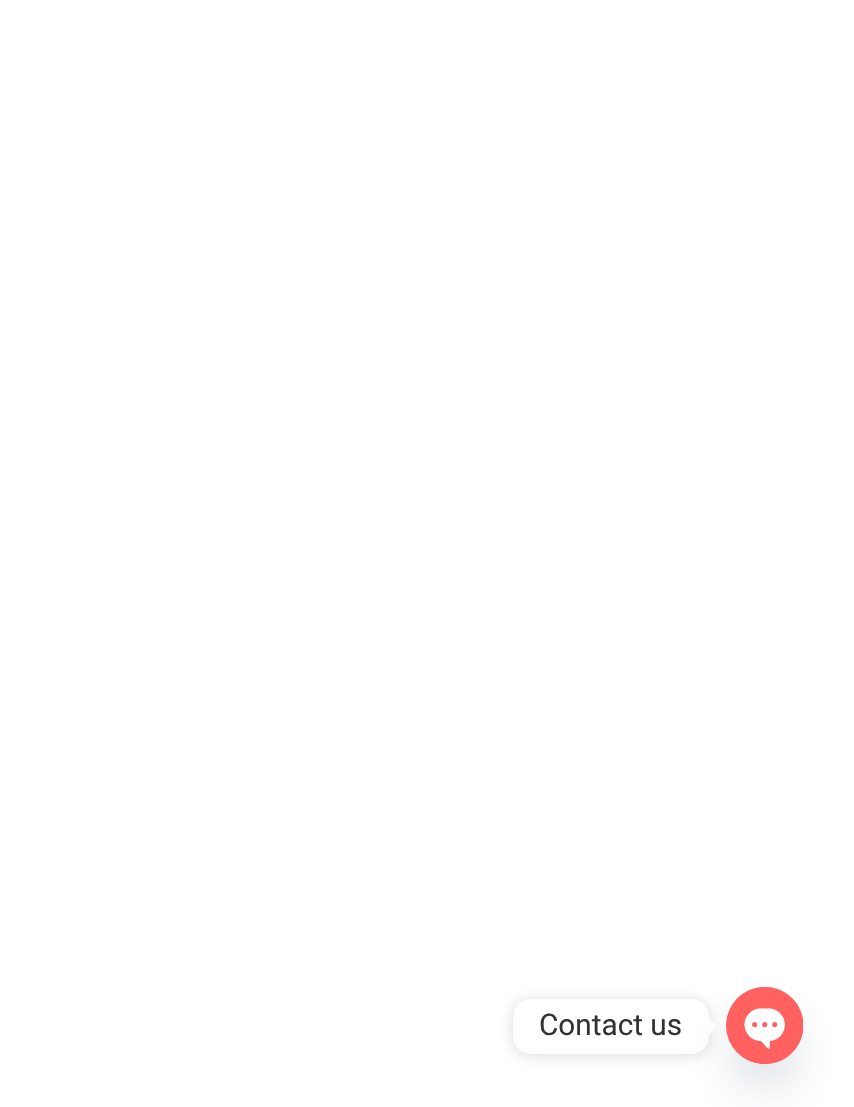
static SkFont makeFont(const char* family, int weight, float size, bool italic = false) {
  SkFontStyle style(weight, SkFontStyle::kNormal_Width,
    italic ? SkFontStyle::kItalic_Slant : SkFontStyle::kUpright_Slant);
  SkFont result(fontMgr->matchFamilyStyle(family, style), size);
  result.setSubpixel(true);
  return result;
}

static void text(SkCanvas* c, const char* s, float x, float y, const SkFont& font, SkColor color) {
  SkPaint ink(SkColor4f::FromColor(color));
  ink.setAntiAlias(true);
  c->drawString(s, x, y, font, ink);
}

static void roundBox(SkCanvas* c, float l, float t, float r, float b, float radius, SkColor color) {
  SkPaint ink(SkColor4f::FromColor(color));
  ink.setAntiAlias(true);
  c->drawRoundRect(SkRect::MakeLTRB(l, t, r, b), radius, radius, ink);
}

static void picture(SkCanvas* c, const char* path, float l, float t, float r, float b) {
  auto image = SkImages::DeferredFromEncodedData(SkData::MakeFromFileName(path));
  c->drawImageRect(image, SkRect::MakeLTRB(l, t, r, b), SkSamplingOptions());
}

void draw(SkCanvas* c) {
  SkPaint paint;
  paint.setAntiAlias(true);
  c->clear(0xffffffff);
  paint.setColor(0x26000000);
  paint.setMaskFilter(SkMaskFilter::MakeBlur(kNormal_SkBlurStyle, 7));
  c->drawRoundRect(SkRect::MakeLTRB(513, 1001, 709, 1055), 18, 18, paint);
  paint.setMaskFilter(nullptr);
  roundBox(c, 513, 999, 709, 1054, 18, 0xffffffff);
  SkFont face1 = makeFont("Roboto", 400, 29.75f);
  text(c, "Contact us", 539, 1035, face1, 0xff333333);
  paint.setColor(0xffffffff);
  c->drawPath(SkPathBuilder().moveTo(709, 1035).lineTo(709, 1017.5f).lineTo(717.5f, 1026.5f).close().detach(), paint);
  paint.setColor(0x2949687e);
  paint.setMaskFilter(SkMaskFilter::MakeBlur(kNormal_SkBlurStyle, 21));
  c->drawRoundRect(SkRect::MakeLTRB(726, 1015, 803, 1092), 38.5f, 38.5f, paint);
  paint.setMaskFilter(nullptr);
  paint.setColor(0xffff6060);
  c->drawCircle(764.5f, 1025.5f, 38.5f, paint);
  picture(c, "img_01.png", 740, 987, 803, 1064);
}
